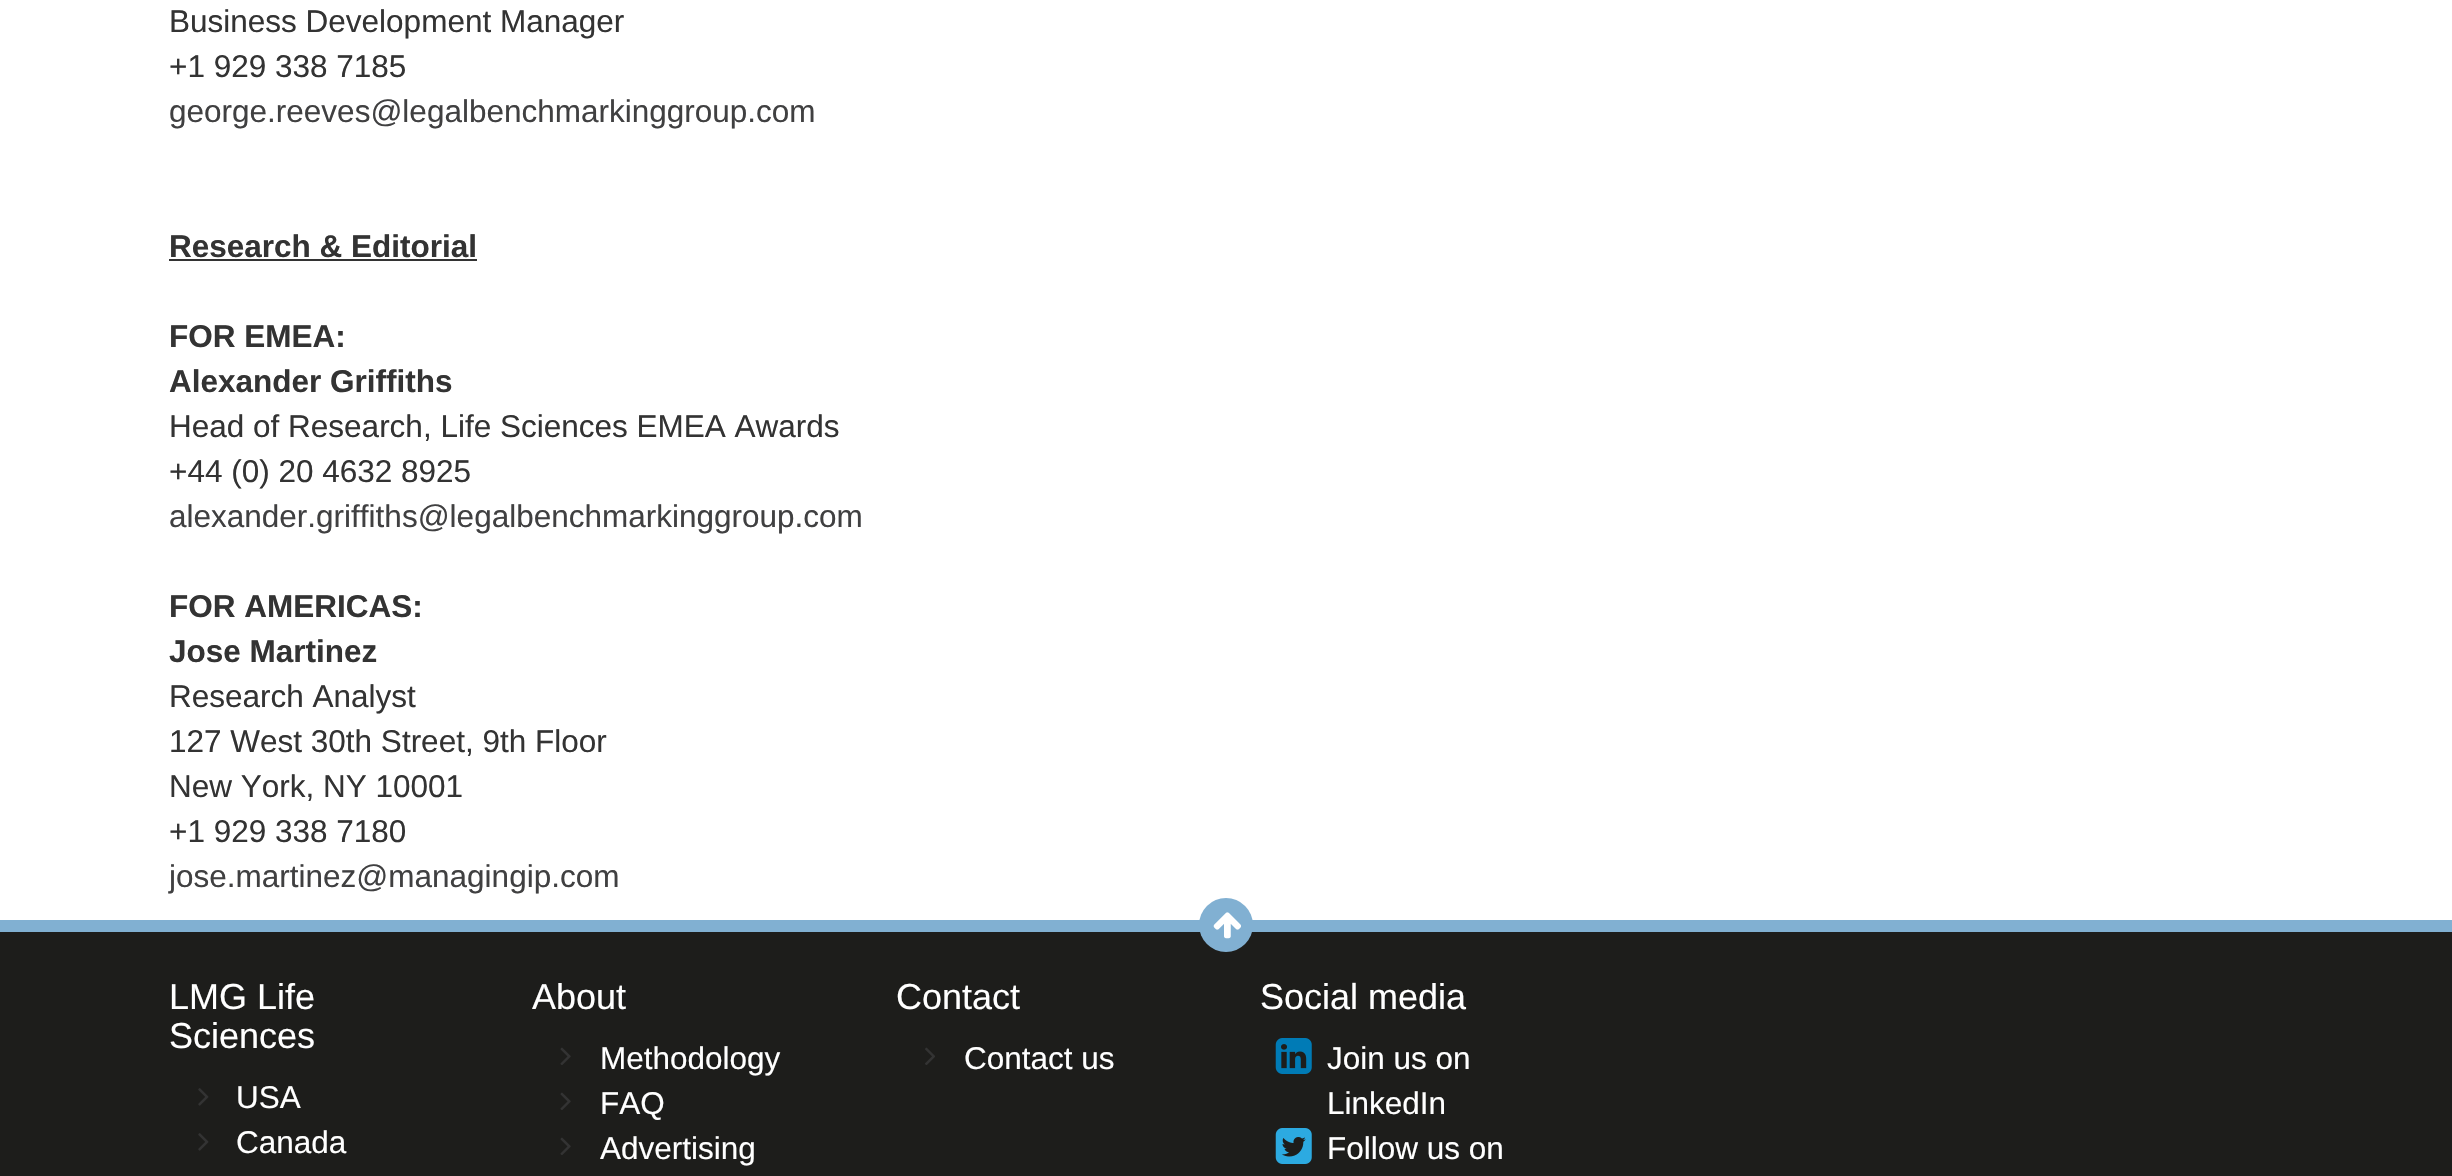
static SkFont makeFont(const char* family, int weight, float size, bool italic = false) {
  SkFontStyle style(weight, SkFontStyle::kNormal_Width,
    italic ? SkFontStyle::kItalic_Slant : SkFontStyle::kUpright_Slant);
  SkFont result(fontMgr->matchFamilyStyle(family, style), size);
  result.setSubpixel(true);
  return result;
}

static void text(SkCanvas* c, const char* s, float x, float y, const SkFont& font, SkColor color) {
  SkPaint ink(SkColor4f::FromColor(color));
  ink.setAntiAlias(true);
  c->drawString(s, x, y, font, ink);
}

static void box(SkCanvas* c, float l, float t, float r, float b, SkColor color) {
  SkPaint ink(SkColor4f::FromColor(color));
  ink.setAntiAlias(true);
  c->drawRect(SkRect::MakeLTRB(l, t, r, b), ink);
}

static void picture(SkCanvas* c, const char* path, float l, float t, float r, float b) {
  auto image = SkImages::DeferredFromEncodedData(SkData::MakeFromFileName(path));
  c->drawImageRect(image, SkRect::MakeLTRB(l, t, r, b), SkSamplingOptions());
}

void draw(SkCanvas* c) {
  SkPaint paint;
  paint.setAntiAlias(true);
  c->clear(0xffffffff);
  SkFont face1 = makeFont("Liberation Sans", 400, 31.5f);
  text(c, "Business Development Manager", 169, 32, face1, 0xff333333);
  text(c, "+1 929 338 7185", 169, 77, face1, 0xff333333);
  text(c, "george.reeves@legalbenchmarkinggroup.com", 169, 122, face1, 0xff404041);
  SkFont face2 = makeFont("Liberation Sans", 700, 31.5f);
  text(c, "Research & Editorial", 169, 257, face2, 0xff333333);
  box(c, 169, 259, 477, 261, 0xff333333);
  text(c, "FOR EMEA:", 169, 347, face2, 0xff333333);
  text(c, "Alexander Griffiths", 169, 392, face2, 0xff333333);
  text(c, "Head of Research, Life Sciences EMEA Awards", 169, 437, face1, 0xff333333);
  text(c, "+44 (0) 20 4632 8925", 169, 482, face1, 0xff333333);
  text(c, "alexander.griffiths@legalbenchmarkinggroup.com", 169, 527, face1, 0xff404041);
  text(c, "FOR AMERICAS:", 169, 617, face2, 0xff333333);
  text(c, "Jose Martinez", 169, 662, face2, 0xff333333);
  text(c, "Research Analyst", 169, 707, face1, 0xff333333);
  text(c, "127 West 30th Street, 9th Floor", 169, 752, face1, 0xff333333);
  text(c, "New York, NY 10001", 169, 797, face1, 0xff333333);
  text(c, "+1 929 338 7180", 169, 842, face1, 0xff333333);
  text(c, "jose.martinez@managingip.com", 169, 887, face1, 0xff404041);
  box(c, 0, 932, 2452, 1176, 0xff1d1d1b);
  box(c, 0, 920, 2452, 932, 0xff81b0d2);
  paint.setColor(0xff81b0d2);
  c->drawCircle(1226, 925, 27, paint);
  picture(c, "img_01.png", 1213, 912, 1241, 939);
  SkFont face3 = makeFont("Liberation Sans", 400, 36);
  text(c, "LMG Life", 169, 1009, face3, 0xffffffff);
  text(c, "Sciences", 169, 1048, face3, 0xffffffff);
  picture(c, "img_02.png", 198, 1088, 209, 1106);
  text(c, "USA", 236, 1108, face1, 0xffffffff);
  picture(c, "img_02.png", 198, 1133, 209, 1151);
  text(c, "Canada", 236, 1153, face1, 0xffffffff);
  text(c, "About", 532, 1009, face3, 0xffffffff);
  picture(c, "img_03.png", 560, 1047, 571, 1065);
  text(c, "Methodology", 600, 1069, face1, 0xffffffff);
  picture(c, "img_03.png", 560, 1092, 571, 1110);
  text(c, "FAQ", 600, 1114, face1, 0xffffffff);
  picture(c, "img_03.png", 560, 1137, 571, 1155);
  text(c, "Advertising", 600, 1159, face1, 0xffffffff);
  text(c, "Contact", 896, 1009, face3, 0xffffffff);
  picture(c, "img_04.png", 925, 1047, 935, 1065);
  text(c, "Contact us", 964, 1069, face1, 0xffffffff);
  text(c, "Social media", 1260, 1009, face3, 0xffffffff);
  picture(c, "img_05.png", 1275, 1038, 1312, 1074);
  text(c, "Join us on", 1327, 1069, face1, 0xffffffff);
  text(c, "LinkedIn", 1327, 1114, face1, 0xffffffff);
  picture(c, "img_06.png", 1275, 1128, 1312, 1164);
  text(c, "Follow us on", 1327, 1159, face1, 0xffffffff);
}
